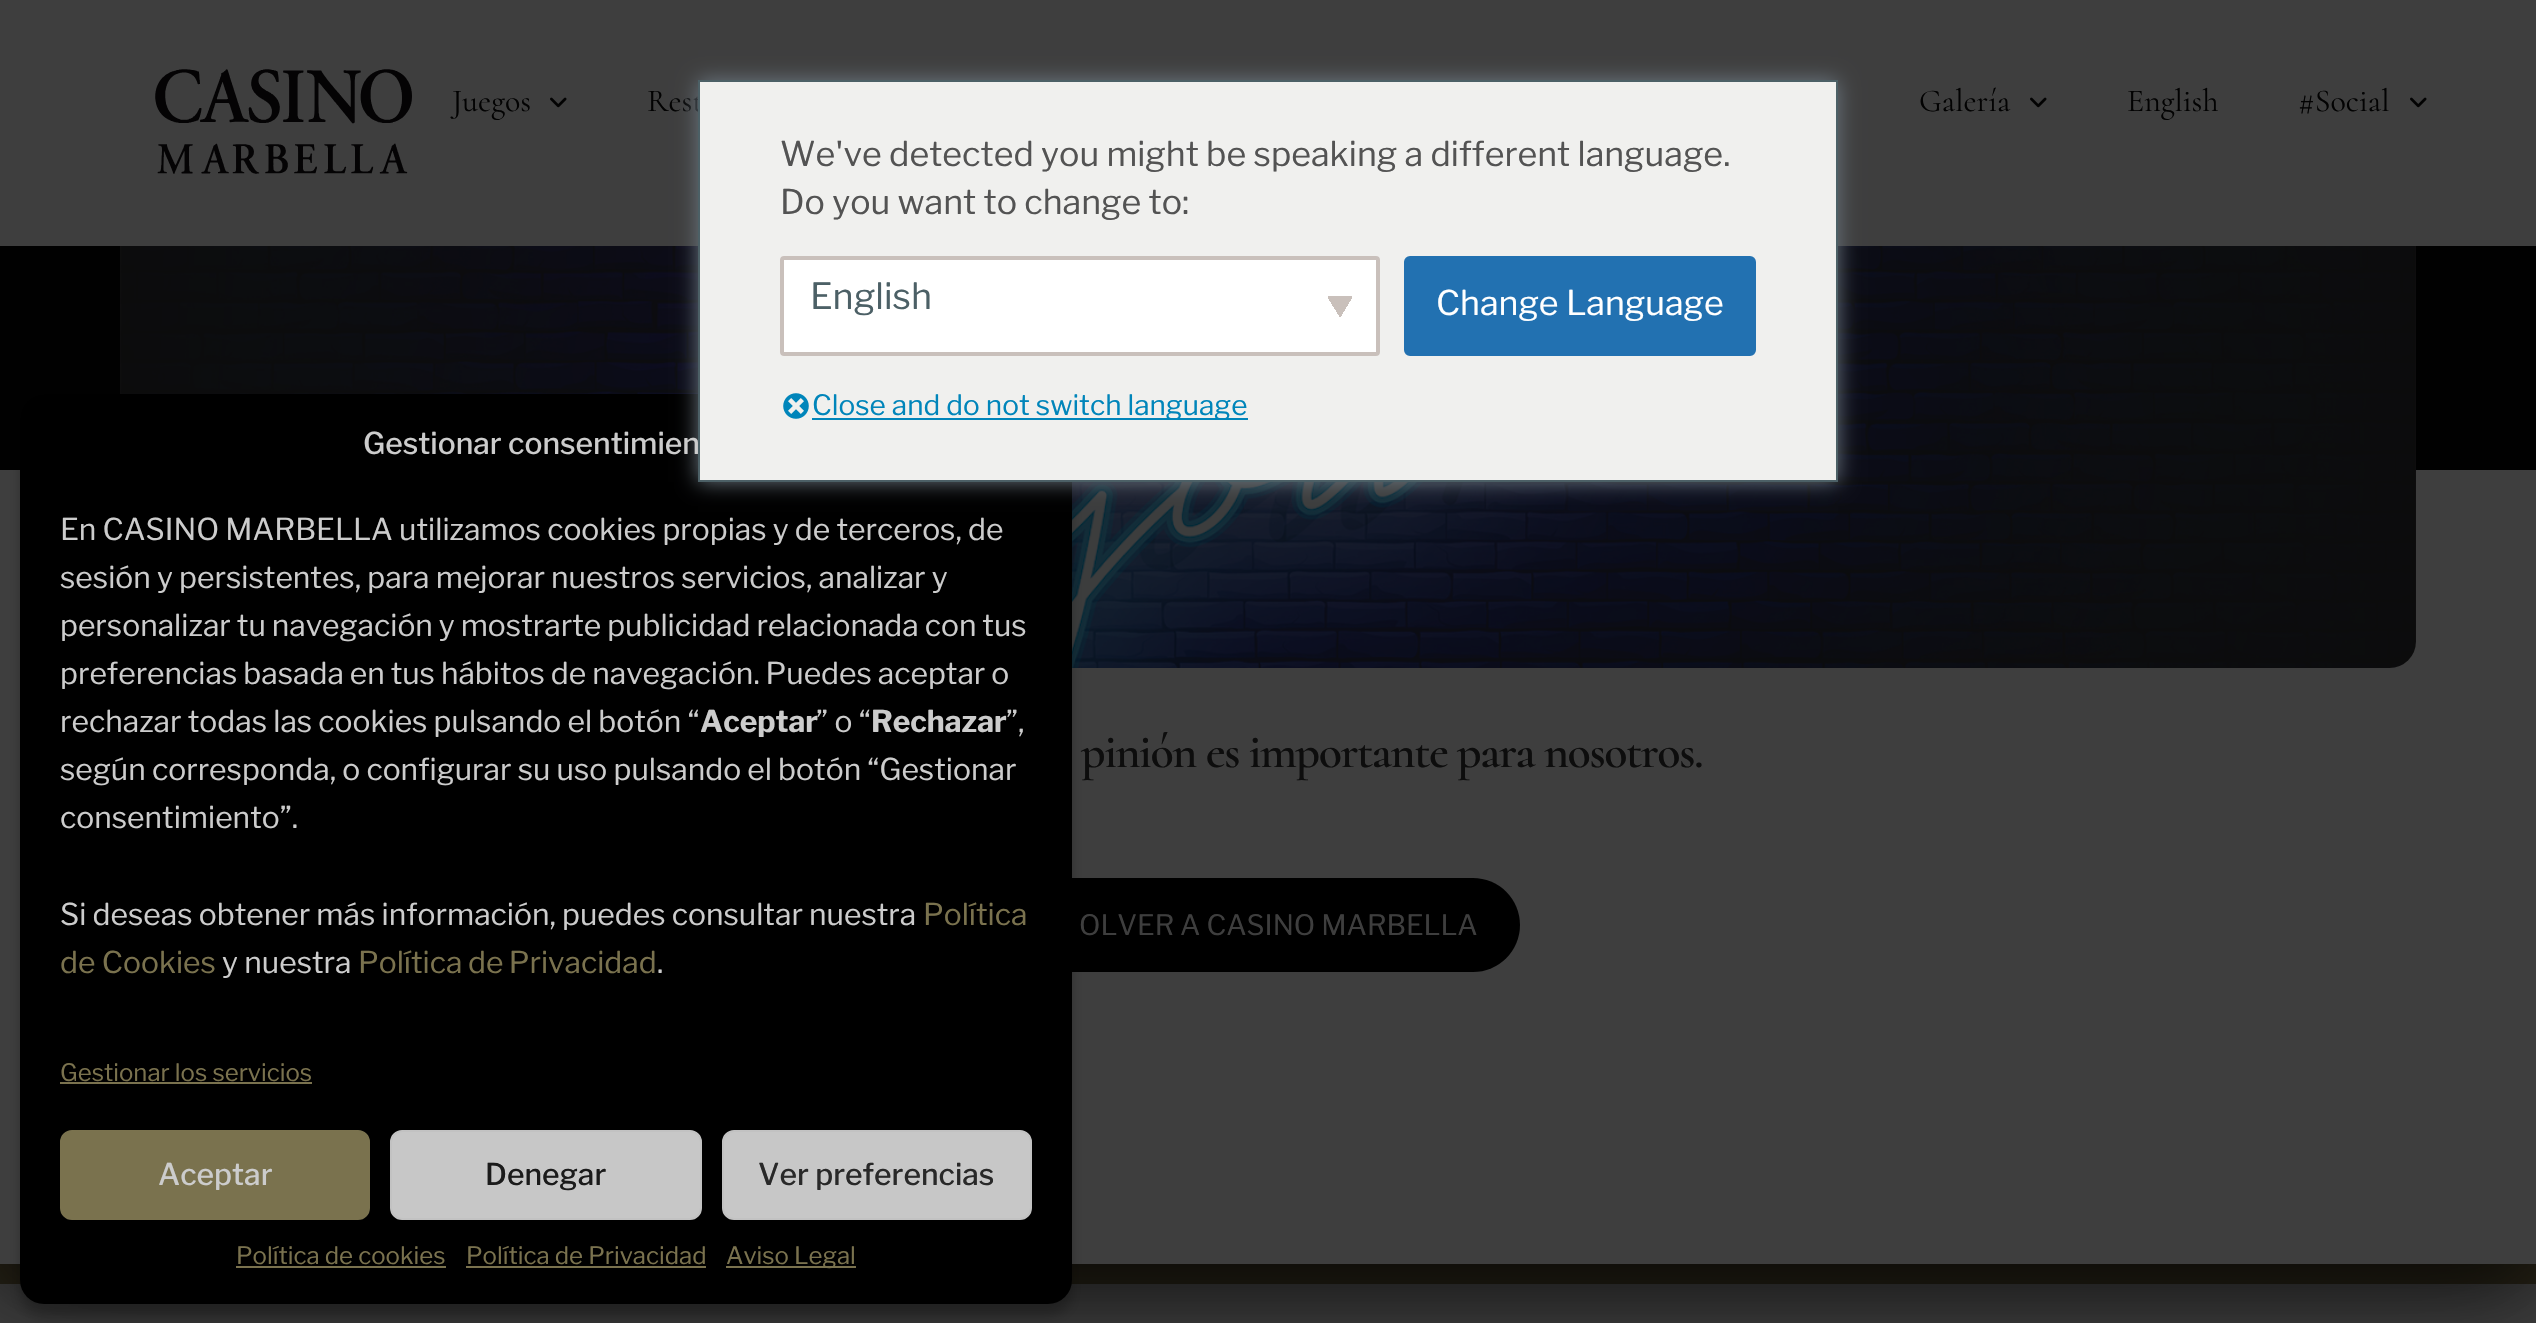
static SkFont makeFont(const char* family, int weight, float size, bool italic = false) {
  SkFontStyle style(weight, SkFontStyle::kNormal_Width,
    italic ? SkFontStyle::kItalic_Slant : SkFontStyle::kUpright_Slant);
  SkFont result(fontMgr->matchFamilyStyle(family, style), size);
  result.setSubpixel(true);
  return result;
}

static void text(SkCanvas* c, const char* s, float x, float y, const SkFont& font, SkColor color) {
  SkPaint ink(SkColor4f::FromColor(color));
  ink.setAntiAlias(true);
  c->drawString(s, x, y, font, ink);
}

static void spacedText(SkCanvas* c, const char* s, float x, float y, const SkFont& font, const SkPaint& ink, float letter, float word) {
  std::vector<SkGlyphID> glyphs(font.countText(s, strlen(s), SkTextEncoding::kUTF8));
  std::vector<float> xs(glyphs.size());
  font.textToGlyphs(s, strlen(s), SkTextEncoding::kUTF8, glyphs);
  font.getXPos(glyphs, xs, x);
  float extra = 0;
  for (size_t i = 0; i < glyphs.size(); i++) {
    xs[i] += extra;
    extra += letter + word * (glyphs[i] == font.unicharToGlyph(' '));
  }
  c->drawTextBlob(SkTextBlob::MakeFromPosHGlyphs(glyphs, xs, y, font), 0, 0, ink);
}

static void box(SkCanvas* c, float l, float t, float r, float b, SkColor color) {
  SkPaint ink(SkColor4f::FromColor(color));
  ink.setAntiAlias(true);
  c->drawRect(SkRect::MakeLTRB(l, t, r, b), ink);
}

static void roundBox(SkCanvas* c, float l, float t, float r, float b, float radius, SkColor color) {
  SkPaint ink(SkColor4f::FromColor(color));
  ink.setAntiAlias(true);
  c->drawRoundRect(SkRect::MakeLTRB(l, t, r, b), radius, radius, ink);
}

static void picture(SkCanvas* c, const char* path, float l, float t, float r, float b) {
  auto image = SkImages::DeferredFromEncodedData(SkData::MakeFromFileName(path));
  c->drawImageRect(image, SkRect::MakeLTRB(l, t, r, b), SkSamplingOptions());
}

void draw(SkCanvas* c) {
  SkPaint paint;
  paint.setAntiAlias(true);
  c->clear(0xff3e3e3e);
  box(c, 0, 1264, 2536, 1284, 0xff262216);
  paint.setColor(0x33000000);
  paint.setMaskFilter(SkMaskFilter::MakeBlur(kNormal_SkBlurStyle, 60));
  c->drawRect(SkRect::MakeLTRB(0, -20, 2536, 1304), paint);
  paint.setMaskFilter(nullptr);
  paint.setColor(0xb3000000);
  paint.setMaskFilter(SkMaskFilter::MakeBlur(kNormal_SkBlurStyle, 40));
  c->drawRect(SkRect::MakeLTRB(0, -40, 2536, 1284), paint);
  paint.setMaskFilter(nullptr);
  box(c, 0, 0, 2536, 246, 0xff3e3e3e);
  picture(c, "img_01.png", 155, 69, 412, 174);
  SkFont face1 = makeFont("Cormorant", 400, 32);
  text(c, "Juegos", 452, 111, face1, 0xff020202);
  picture(c, "img_02.png", 550, 97, 567, 108);
  text(c, "Rest", 647, 111, face1, 0xff020202);
  text(c, "Galería", 1919, 111, face1, 0xff020202);
  picture(c, "img_02.png", 2030, 97, 2047, 108);
  text(c, "English", 2127, 111, face1, 0xff020202);
  text(c, "#Social", 2298, 111, face1, 0xff020202);
  picture(c, "img_02.png", 2410, 97, 2427, 108);
  box(c, 0, 470, 2536, 1264, 0xff3e3e3e);
  box(c, 0, 246, 2536, 470, 0xff010101);
  picture(c, "img_04.png", 120, 246, 2416, 668);
  roundBox(c, 1016, 878, 1520, 972, 47, 0xff000000);
  paint.setColor(0x3b000000);
  paint.setMaskFilter(SkMaskFilter::MakeBlur(kNormal_SkBlurStyle, 6));
  c->drawRoundRect(SkRect::MakeLTRB(20, 406, 1072, 1316), 24, 24, paint);
  paint.setMaskFilter(nullptr);
  roundBox(c, 20, 394, 1072, 1304, 24, 0xff000000);
  paint.setColor(0xff6c7781);
  paint.setMaskFilter(SkMaskFilter::MakeBlur(kNormal_SkBlurStyle, 10));
  c->drawRect(SkRect::MakeLTRB(698, 80, 1838, 482), paint);
  paint.setMaskFilter(nullptr);
  paint.setColor(0xfff0f0ee);
  c->drawRect(SkRect::MakeLTRB(699, 81, 1837, 481), paint);
  paint.setStyle(SkPaint::kStroke_Style);
  paint.setStrokeWidth(2);
  paint.setColor(0xff4c6066);
  c->drawRect(SkRect::MakeLTRB(699, 81, 1837, 481), paint);
  SkFont face2 = makeFont("Libre Franklin", 400, 34);
  text(c, "We've detected you might be speaking a different language.", 780, 166, face2, 0xff535353);
  text(c, "Do you want to change to:", 780, 214, face2, 0xff535353);
  roundBox(c, 780, 256, 1380, 356, 4, 0xffffffff);
  paint.setStyle(SkPaint::kFill_Style);
  {
    const SkColor colors[] = {0xffc9c0bb, 0xffffffff};
    const float stops[] = {0.5f, 0.5f};
    const SkPoint ends[] = {{1336, 302}, {1356, 314}};
    paint.setShader(SkGradientShader::MakeLinear(ends, colors, stops, 2, SkTileMode::kClamp));
    paint.setAlpha(255);
  }
  c->drawRect(SkRect::MakeLTRB(1340, 296, 1352, 317), paint);
  {
    const SkColor colors[] = {0xffffffff, 0xffc9c0bb};
    const float stops[] = {0.5f, 0.5f};
    const SkPoint ends[] = {{1324, 314}, {1344, 302}};
    paint.setShader(SkGradientShader::MakeLinear(ends, colors, stops, 2, SkTileMode::kClamp));
    paint.setAlpha(255);
  }
  c->drawRect(SkRect::MakeLTRB(1328, 296, 1340, 317), paint);
  paint.setStyle(SkPaint::kStroke_Style);
  paint.setStrokeWidth(4);
  paint.setShader(nullptr);
  paint.setColor(0xffc9c0bb);
  c->drawRoundRect(SkRect::MakeLTRB(782, 258, 1378, 354), 2, 2, paint);
  SkFont face3 = makeFont("Libre Franklin", 400, 36);
  text(c, "English", 810, 309, face3, 0xff4c6066);
  paint.setStyle(SkPaint::kFill_Style);
  paint.setColor(0xff2271b1);
  c->drawRoundRect(SkRect::MakeLTRB(1405, 257, 1755, 355), 5, 5, paint);
  paint.setStyle(SkPaint::kStroke_Style);
  paint.setStrokeWidth(2);
  c->drawRoundRect(SkRect::MakeLTRB(1405, 257, 1755, 355), 5, 5, paint);
  text(c, "Change Language", 1436, 315, face2, 0xffffffff);
  picture(c, "img_03.png", 783, 393, 809, 419);
  box(c, 812, 418, 1248, 420, 0xff0085ba);
  SkFont face4 = makeFont("Libre Franklin", 400, 28);
  text(c, "Close and do not switch language", 812, 415, face4, 0xff0085ba);
  SkFont face5 = makeFont("Cormorant", 600, 48);
  paint.setStyle(SkPaint::kFill_Style);
  paint.setColor(0xff0d0d0d);
  spacedText(c, "pinión es importante para nosotros.", 1081, 767, face5, paint, -1.45f, 0);
  text(c, "OLVER A CASINO MARBELLA", 1079, 935, face4, 0xff3e3e3e);
  SkFont face6 = makeFont("Libre Franklin", 500, 30);
  text(c, "Gestionar consentimien", 363, 454, face6, 0xffcccccc);
  SkFont face7 = makeFont("Libre Franklin", 400, 30);
  paint.setColor(0xffcccccc);
  spacedText(c, "En CASINO MARBELLA utilizamos cookies propias y de terceros, de", 60, 540, face7, paint, 0, -0.25f);
  spacedText(c, "sesión y persistentes, para mejorar nuestros servicios, analizar y", 60, 588, face7, paint, 0, -0.25f);
  spacedText(c, "personalizar tu navegación y mostrarte publicidad relacionada con tus", 60, 636, face7, paint, 0, -0.5f);
  spacedText(c, "preferencias basada en tus hábitos de navegación. Puedes aceptar o", 60, 684, face7, paint, 0, -0.5f);
  spacedText(c, "rechazar todas las cookies pulsando el botón “", 60, 732, face7, paint, 0, -0.25f);
  SkFont face8 = makeFont("Libre Franklin", 700, 30);
  text(c, "Aceptar", 700, 732, face8, 0xffcccccc);
  text(c, "” o “", 816, 732, face7, 0xffcccccc);
  text(c, "Rechazar", 871, 732, face8, 0xffcccccc);
  text(c, "”,", 1006, 732, face7, 0xffcccccc);
  spacedText(c, "según corresponda, o configurar su uso pulsando el botón “Gestionar", 60, 780, face7, paint, 0, -0.25f);
  text(c, "consentimiento”.", 60, 828, face7, 0xffcccccc);
  spacedText(c, "Si deseas obtener más información, puedes consultar nuestra", 60, 925, face7, paint, 0, -0.25f);
  text(c, "Política", 923, 925, face7, 0xff7a724e);
  text(c, "de Cookies", 60, 973, face7, 0xff7a724e);
  text(c, "y nuestra", 222, 973, face7, 0xffcccccc);
  paint.setColor(0xff7a724e);
  spacedText(c, "Política de Privacidad", 358, 973, face7, paint, 0, -1);
  text(c, ".", 657, 973, face7, 0xffcccccc);
  SkFont face9 = makeFont("Libre Franklin", 400, 24);
  text(c, "Gestionar los servicios", 60, 1081, face9, 0xff7a724e);
  box(c, 60, 1082, 312, 1084, 0xff7a724e);
  c->drawRoundRect(SkRect::MakeLTRB(61, 1131, 369, 1219), 11, 11, paint);
  paint.setStyle(SkPaint::kStroke_Style);
  c->drawRoundRect(SkRect::MakeLTRB(61, 1131, 369, 1219), 11, 11, paint);
  text(c, "Aceptar", 158, 1185, face6, 0xffcccccc);
  paint.setStyle(SkPaint::kFill_Style);
  paint.setColor(0xffc7c7c7);
  c->drawRoundRect(SkRect::MakeLTRB(391, 1131, 701, 1219), 11, 11, paint);
  paint.setStyle(SkPaint::kStroke_Style);
  paint.setColor(0xffc2c2c2);
  c->drawRoundRect(SkRect::MakeLTRB(391, 1131, 701, 1219), 11, 11, paint);
  text(c, "Denegar", 485, 1185, face6, 0xff1b1b1b);
  paint.setStyle(SkPaint::kFill_Style);
  paint.setColor(0xffc7c7c7);
  c->drawRoundRect(SkRect::MakeLTRB(723, 1131, 1031, 1219), 11, 11, paint);
  paint.setStyle(SkPaint::kStroke_Style);
  paint.setColor(0xffc2c2c2);
  c->drawRoundRect(SkRect::MakeLTRB(723, 1131, 1031, 1219), 11, 11, paint);
  text(c, "Ver preferencias", 758, 1185, face6, 0xff292929);
  text(c, "Política de cookies", 236, 1264, face9, 0xff7a724e);
  box(c, 236, 1266, 446, 1268, 0xff7a724e);
  text(c, "Política de Privacidad", 466, 1264, face9, 0xff7a724e);
  box(c, 466, 1266, 706, 1268, 0xff7a724e);
  box(c, 726, 1266, 856, 1268, 0xff7a724e);
  text(c, "Aviso Legal", 726, 1264, face9, 0xff7a724e);
}
